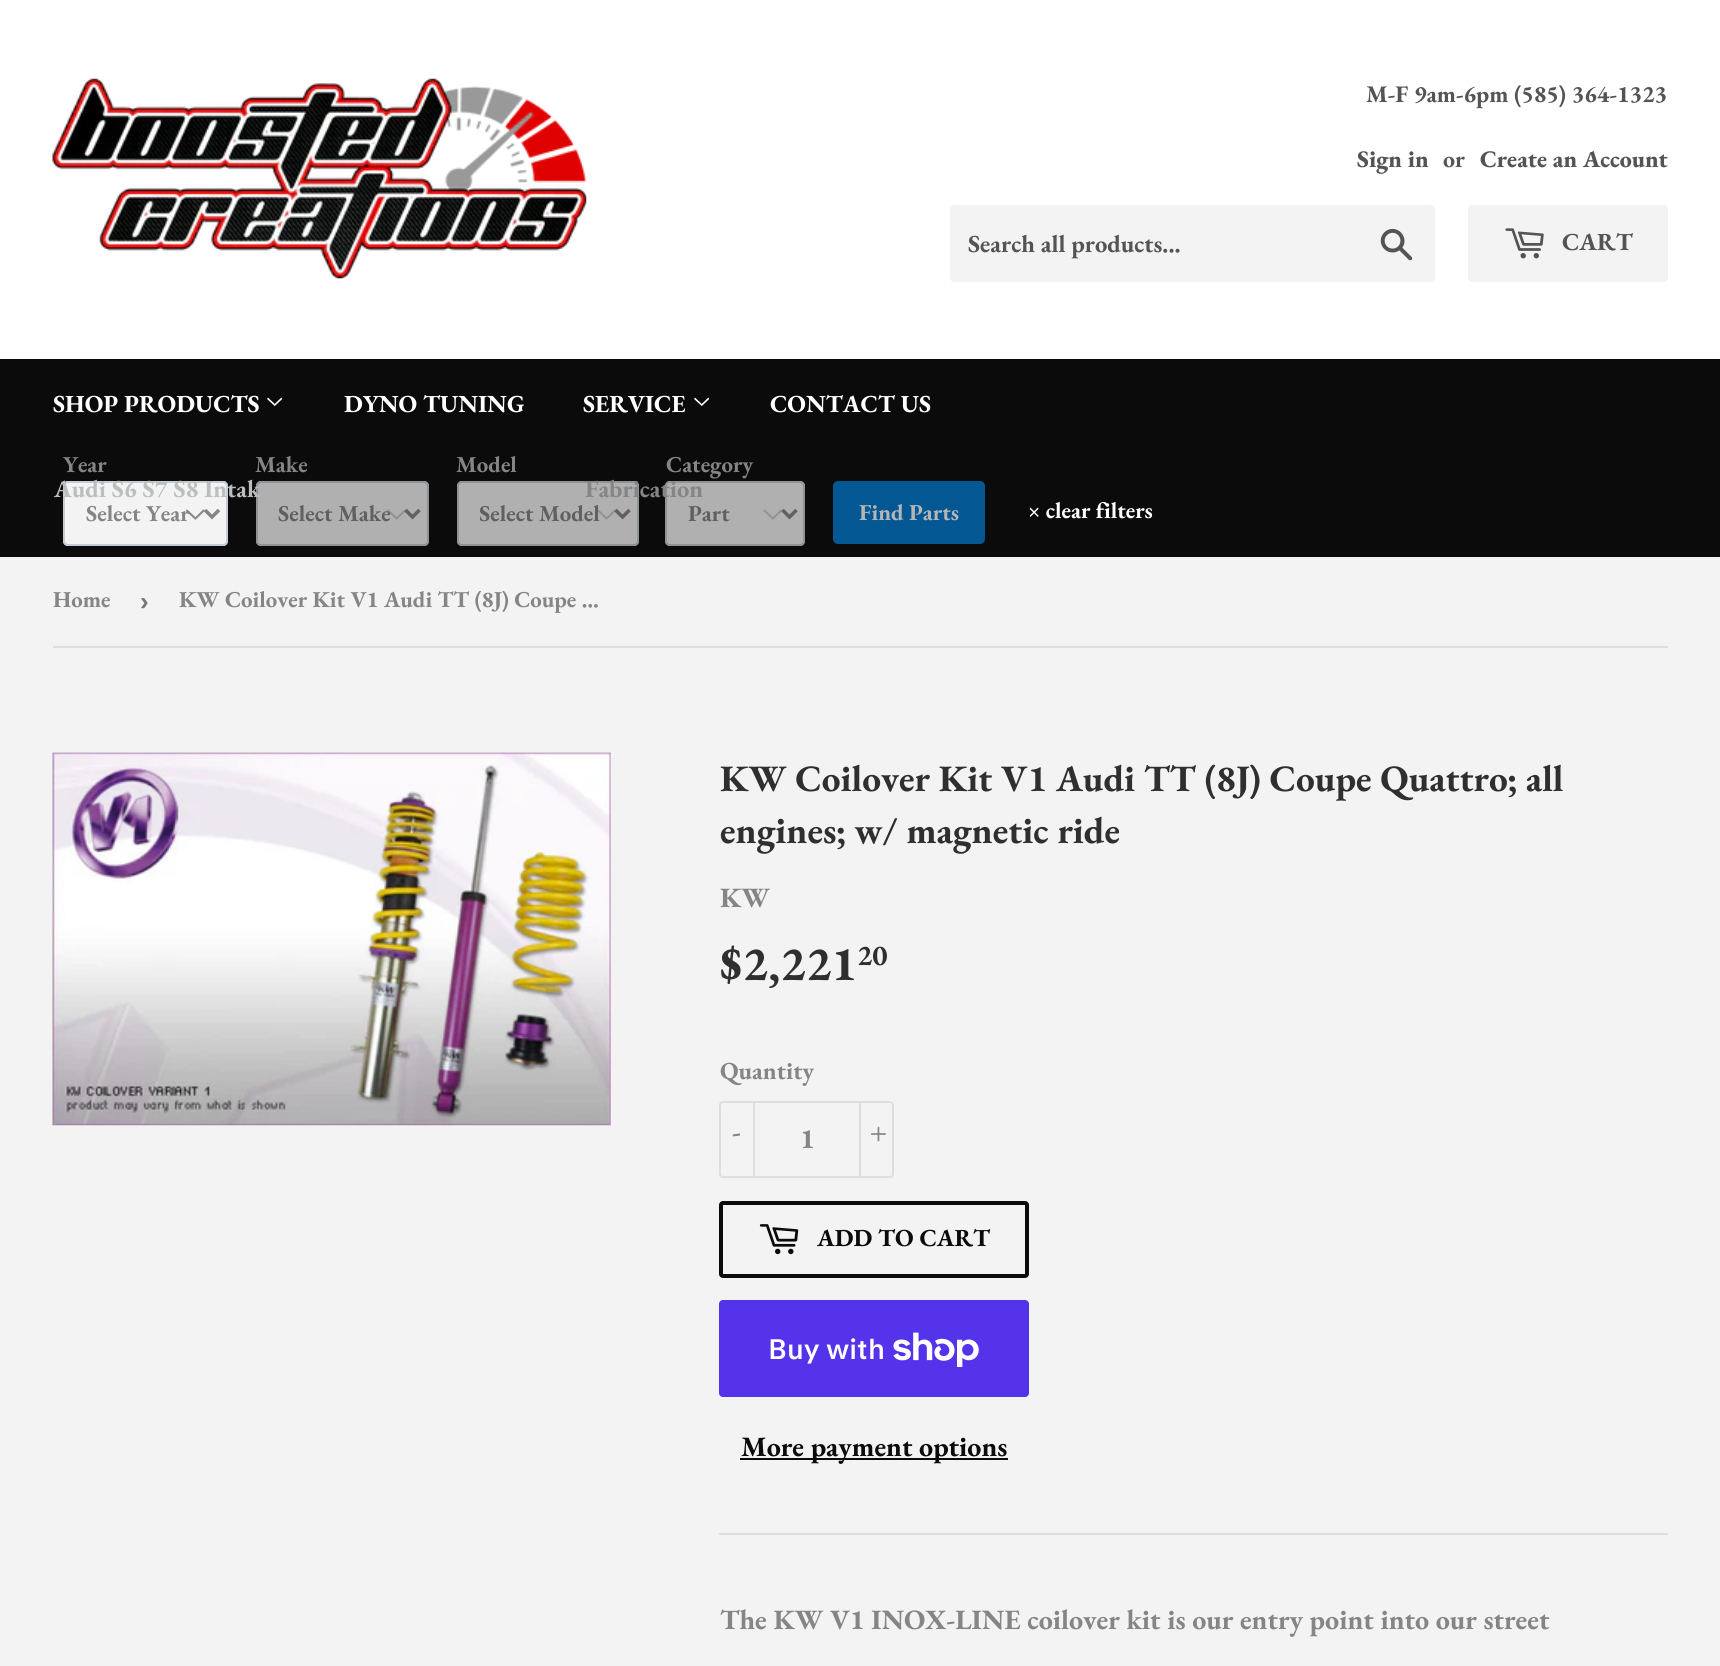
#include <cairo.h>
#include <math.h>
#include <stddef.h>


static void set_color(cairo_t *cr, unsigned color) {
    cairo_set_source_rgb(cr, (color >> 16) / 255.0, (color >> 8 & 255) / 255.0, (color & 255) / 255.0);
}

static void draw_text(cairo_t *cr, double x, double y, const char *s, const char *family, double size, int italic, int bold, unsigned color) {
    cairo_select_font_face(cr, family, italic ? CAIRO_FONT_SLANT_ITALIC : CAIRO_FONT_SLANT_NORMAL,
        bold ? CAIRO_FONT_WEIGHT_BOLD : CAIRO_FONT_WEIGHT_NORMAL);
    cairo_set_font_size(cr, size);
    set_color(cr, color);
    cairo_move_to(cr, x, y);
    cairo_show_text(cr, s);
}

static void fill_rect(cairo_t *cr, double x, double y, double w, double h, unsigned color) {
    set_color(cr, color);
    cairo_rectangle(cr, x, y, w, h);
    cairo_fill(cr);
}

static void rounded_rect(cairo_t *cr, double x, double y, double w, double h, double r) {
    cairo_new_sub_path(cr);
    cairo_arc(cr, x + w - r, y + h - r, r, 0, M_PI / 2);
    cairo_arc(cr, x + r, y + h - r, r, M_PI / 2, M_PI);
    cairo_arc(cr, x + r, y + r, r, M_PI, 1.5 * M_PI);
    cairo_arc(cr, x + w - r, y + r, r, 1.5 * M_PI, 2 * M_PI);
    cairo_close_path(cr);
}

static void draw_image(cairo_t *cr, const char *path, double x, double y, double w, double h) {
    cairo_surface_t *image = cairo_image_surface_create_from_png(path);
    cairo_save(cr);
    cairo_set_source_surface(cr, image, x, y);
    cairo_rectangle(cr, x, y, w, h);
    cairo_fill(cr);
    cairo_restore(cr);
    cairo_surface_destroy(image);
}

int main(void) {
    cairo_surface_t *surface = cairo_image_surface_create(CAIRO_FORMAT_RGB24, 1720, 1666);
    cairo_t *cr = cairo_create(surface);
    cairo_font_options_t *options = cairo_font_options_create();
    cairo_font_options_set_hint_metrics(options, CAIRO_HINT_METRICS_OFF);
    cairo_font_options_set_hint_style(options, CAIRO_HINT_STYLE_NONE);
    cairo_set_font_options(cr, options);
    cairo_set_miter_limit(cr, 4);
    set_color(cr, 0xF3F3F3);
    cairo_paint(cr);
    fill_rect(cr, 0, 0, 1720, 359, 0xFFFFFF);
    draw_image(cr, "assets/img1.png", 52, 78, 535, 201);
    draw_text(cr, 1366, 102, "M-F 9am-6pm (585) 364-1323", "EB Garamond", 23.75, 0, 1, 0x545454);
    draw_text(cr, 1357, 167, "Sign in", "EB Garamond ExtraBold", 23.75, 0, 0, 0x545454);
    draw_text(cr, 1443, 167, "or", "EB Garamond", 23.75, 0, 1, 0x545454);
    draw_text(cr, 1480, 167, "Create an Account", "EB Garamond ExtraBold", 23.75, 0, 0, 0x545454);
    set_color(cr, 0xF3F3F3);
    rounded_rect(cr, 950, 205, 485, 77, 4);
    cairo_fill(cr);
    draw_text(cr, 968, 252, "Search all products...", "EB Garamond", 24.5, 0, 1, 0x545454);
    draw_image(cr, "assets/img2.png", 1380, 228, 33, 33);
    set_color(cr, 0xF3F3F3);
    rounded_rect(cr, 1468, 205, 200, 77, 4);
    cairo_fill(cr);
    draw_image(cr, "assets/img3.png", 1505, 228, 39, 31);
    draw_text(cr, 1562, 250, "CART", "EB Garamond", 24.5, 0, 1, 0x545454);
    fill_rect(cr, 0, 359, 1720, 198, 0x0B0B0B);
    draw_text(cr, 53, 412, "SHOP PRODUCTS", "EB Garamond", 24.5, 0, 1, 0xFFFFFF);
    draw_image(cr, "assets/img4.png", 267, 397, 15, 9);
    set_color(cr, 0xF3F3F3);
    rounded_rect(cr, 63, 481, 165, 65, 5);
    cairo_fill(cr);
    draw_image(cr, "assets/img5.png", 186, 509, 19, 11);
    rounded_rect(cr, 64, 482, 163, 63, 4);
    set_color(cr, 0xC4CDD5);
    cairo_stroke(cr);
    set_color(cr, 0xB0B0B0);
    rounded_rect(cr, 256, 481, 173, 65, 5);
    cairo_fill(cr);
    draw_image(cr, "assets/img6.png", 387, 509, 19, 11);
    rounded_rect(cr, 257, 482, 171, 63, 4);
    set_color(cr, 0x8D9398);
    cairo_stroke(cr);
    draw_text(cr, 54, 497, "Audi S6 S7 S8 Intak", "EB Garamond", 24.5, 0, 1, 0xBCBDBD);
    draw_text(cr, 344, 412, "DYNO TUNING", "EB Garamond", 24.5, 0, 1, 0xFFFFFF);
    draw_text(cr, 583, 412, "SERVICE", "EB Garamond", 24.5, 0, 1, 0xFFFFFF);
    draw_image(cr, "assets/img4.png", 694, 397, 15, 9);
    set_color(cr, 0xB0B0B0);
    rounded_rect(cr, 457, 481, 182, 65, 5);
    cairo_fill(cr);
    draw_image(cr, "assets/img6.png", 597, 509, 19, 11);
    rounded_rect(cr, 458, 482, 180, 63, 4);
    set_color(cr, 0x8D9398);
    cairo_stroke(cr);
    set_color(cr, 0xB0B0B0);
    rounded_rect(cr, 665, 481, 140, 65, 5);
    cairo_fill(cr);
    draw_image(cr, "assets/img7.png", 763, 509, 19, 11);
    rounded_rect(cr, 666, 482, 138, 63, 4);
    set_color(cr, 0x8D9398);
    cairo_stroke(cr);
    draw_text(cr, 585, 497, "Fabrication", "EB Garamond", 24.5, 0, 1, 0x858585);
    draw_text(cr, 770, 412, "CONTACT US", "EB Garamond", 24.5, 0, 1, 0xFFFFFF);
    draw_text(cr, 63, 472, "Year", "EB Garamond", 22.75, 0, 1, 0x858585);
    cairo_new_path(cr);
    cairo_move_to(cr, 205, 510);
    cairo_line_to(cr, 212, 517);
    cairo_line_to(cr, 219, 510);
    cairo_set_line_width(cr, 3.5);
    cairo_stroke(cr);
    draw_text(cr, 86, 521, "Select Year", "EB Garamond", 22.75, 0, 1, 0x858585);
    draw_text(cr, 255, 472, "Make", "EB Garamond", 22.75, 0, 1, 0x858585);
    cairo_new_path(cr);
    cairo_move_to(cr, 405.5, 510);
    cairo_line_to(cr, 412.5, 517);
    cairo_line_to(cr, 419.5, 510);
    set_color(cr, 0x606060);
    cairo_stroke(cr);
    draw_text(cr, 278, 521, "Select Make", "EB Garamond", 22.75, 0, 1, 0x606060);
    draw_text(cr, 456, 472, "Model", "EB Garamond", 22.75, 0, 1, 0x858585);
    cairo_new_path(cr);
    cairo_move_to(cr, 615.5, 510);
    cairo_line_to(cr, 622.5, 517);
    cairo_line_to(cr, 629.5, 510);
    set_color(cr, 0x606060);
    cairo_stroke(cr);
    cairo_save(cr);
    cairo_rectangle(cr, 480, 497, 122, 33);
    cairo_clip(cr);
    draw_text(cr, 479, 521, "Select Model", "EB Garamond", 22.75, 0, 1, 0x606060);
    cairo_restore(cr);
    draw_text(cr, 666, 472, "Category", "EB Garamond", 22.75, 0, 1, 0x858585);
    cairo_new_path(cr);
    cairo_move_to(cr, 782.5, 510);
    cairo_line_to(cr, 789.5, 517);
    cairo_line_to(cr, 796.5, 510);
    set_color(cr, 0x606060);
    cairo_stroke(cr);
    draw_text(cr, 688, 521, "Part", "EB Garamond", 22.75, 0, 1, 0x606060);
    set_color(cr, 0x035792);
    rounded_rect(cr, 833, 481, 152, 63, 5);
    cairo_fill(cr);
    draw_text(cr, 859, 520, "Find Parts", "EB Garamond", 22.75, 0, 1, 0xB6B6B6);
    draw_text(cr, 1028, 518, "× clear filters", "EB Garamond", 22.75, 0, 1, 0xFFFFFF);
    fill_rect(cr, 53, 646, 1615, 2, 0xDEDEDE);
    draw_text(cr, 53, 607, "Home", "EB Garamond", 22.75, 0, 1, 0x858585);
    draw_text(cr, 140, 610, "›", "Liberation Sans", 26, 0, 1, 0x767676);
    draw_text(cr, 179, 607, "KW Coilover Kit V1 Audi TT (8J) Coupe …", "EB Garamond", 22.75, 0, 1, 0x858585);
    draw_image(cr, "assets/img8.png", 52, 752, 559, 374);
    draw_text(cr, 720, 791, "KW Coilover Kit V1 Audi TT (8J) Coupe Quattro; all", "EB Garamond", 37.3, 0, 1, 0x2F2F2F);
    draw_text(cr, 720, 843, "engines; w/ magnetic ride", "EB Garamond", 37.3, 0, 1, 0x2F2F2F);
    draw_text(cr, 720, 907, "KW", "EB Garamond", 28, 0, 1, 0x858585);
    draw_text(cr, 720, 980, "$2,221", "EB Garamond", 48.5, 0, 1, 0x2F2F2F);
    draw_text(cr, 857, 965, "20", "EB Garamond", 29, 0, 1, 0x2F2F2F);
    draw_text(cr, 720, 1079, "Quantity", "EB Garamond", 24.5, 0, 1, 0x858585);
    rounded_rect(cr, 720, 1102, 173, 75, 3);
    set_color(cr, 0xDEDEDE);
    cairo_set_line_width(cr, 2);
    cairo_stroke(cr);
    fill_rect(cr, 753, 1101, 2, 77, 0xDEDEDE);
    draw_text(cr, 732, 1141, "-", "EB Garamond", 28, 0, 1, 0x858585);
    draw_text(cr, 800, 1148, "1", "EB Garamond", 28, 0, 1, 0x858585);
    fill_rect(cr, 859, 1101, 2, 77, 0xDEDEDE);
    draw_text(cr, 870, 1141, "+", "EB Garamond", 28, 0, 1, 0x858585);
    rounded_rect(cr, 721, 1203, 306, 73, 2);
    set_color(cr, 0x0B0B0B);
    cairo_set_line_width(cr, 4);
    cairo_stroke(cr);
    draw_image(cr, "assets/img9.png", 759, 1224, 40, 31);
    draw_text(cr, 817, 1246, "ADD TO CART", "EB Garamond", 24.5, 0, 1, 0x0B0B0B);
    set_color(cr, 0x5433EB);
    rounded_rect(cr, 719, 1300, 310, 97, 4);
    cairo_fill(cr);
    draw_text(cr, 768, 1359, "Buy with", "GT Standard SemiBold", 28, 0, 0, 0xFFFFFF);
    draw_image(cr, "assets/img10.png", 893, 1332, 86, 35);
    fill_rect(cr, 740, 1458, 268, 2, 0x0B0B0B);
    draw_text(cr, 741, 1456, "More payment options", "EB Garamond", 28, 0, 1, 0x0B0B0B);
    fill_rect(cr, 719, 1533, 949, 2, 0xDEDEDE);
    draw_text(cr, 720, 1629, "The KW V1 INOX-LINE coilover kit is our entry point into our street", "EB Garamond", 28, 0, 1, 0x858585);
    cairo_surface_write_to_png(surface, "output.png");
    cairo_font_options_destroy(options);
    cairo_destroy(cr);
    cairo_surface_destroy(surface);
    return 0;
}
